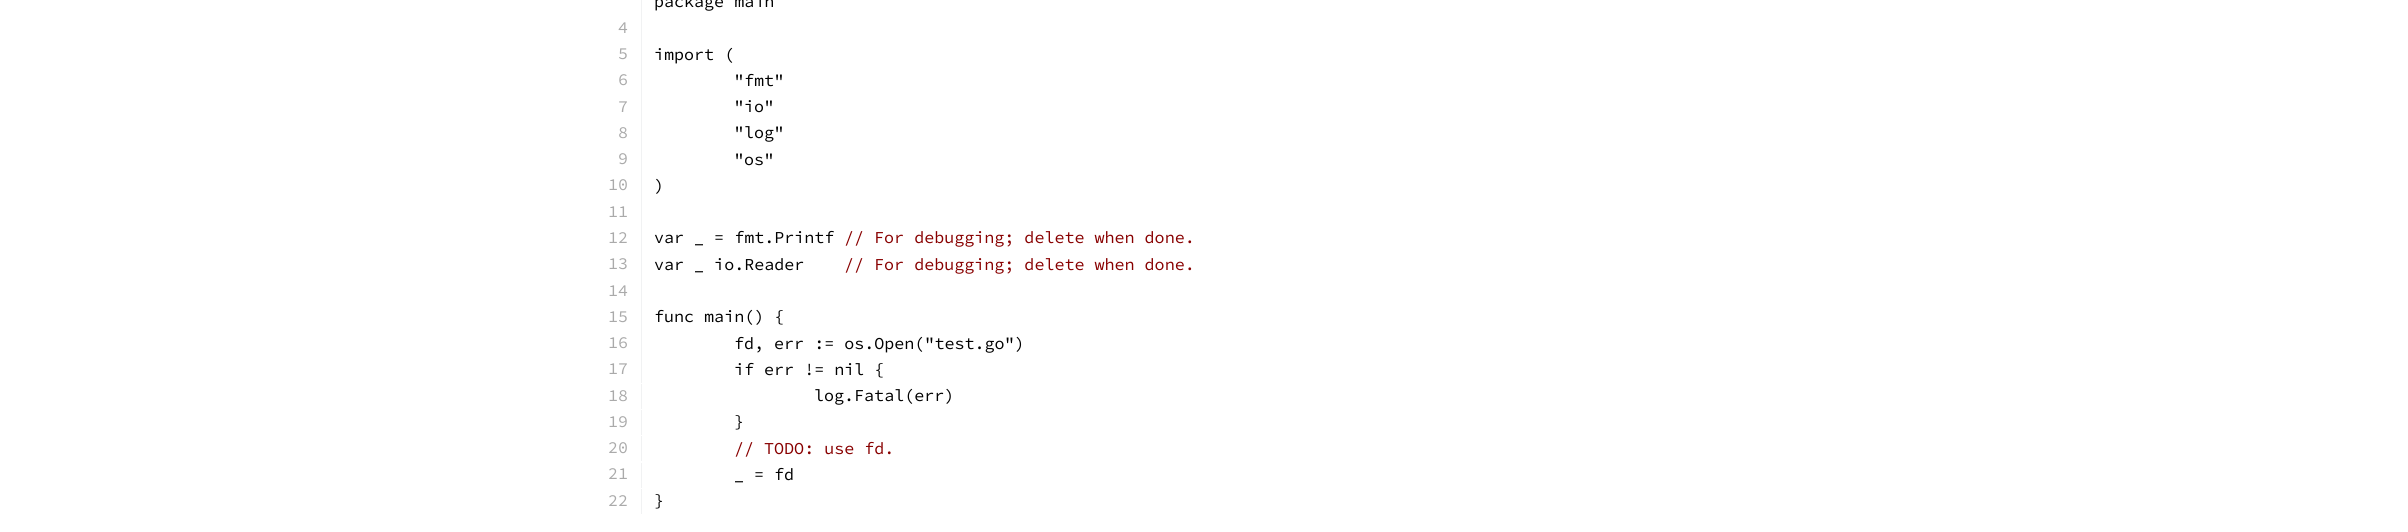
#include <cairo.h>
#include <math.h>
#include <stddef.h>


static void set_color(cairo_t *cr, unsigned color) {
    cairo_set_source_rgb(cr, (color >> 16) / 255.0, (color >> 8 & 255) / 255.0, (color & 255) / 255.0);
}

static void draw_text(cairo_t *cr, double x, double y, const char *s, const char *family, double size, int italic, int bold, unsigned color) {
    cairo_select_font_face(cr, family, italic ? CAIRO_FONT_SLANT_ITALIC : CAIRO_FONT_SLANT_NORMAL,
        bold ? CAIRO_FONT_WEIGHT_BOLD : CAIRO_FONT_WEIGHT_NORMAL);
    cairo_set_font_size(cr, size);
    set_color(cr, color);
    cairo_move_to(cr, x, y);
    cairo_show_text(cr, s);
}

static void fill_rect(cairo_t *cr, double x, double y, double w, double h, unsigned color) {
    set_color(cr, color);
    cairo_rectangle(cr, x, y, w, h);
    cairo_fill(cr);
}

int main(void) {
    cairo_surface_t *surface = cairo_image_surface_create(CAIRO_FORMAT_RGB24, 2408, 532);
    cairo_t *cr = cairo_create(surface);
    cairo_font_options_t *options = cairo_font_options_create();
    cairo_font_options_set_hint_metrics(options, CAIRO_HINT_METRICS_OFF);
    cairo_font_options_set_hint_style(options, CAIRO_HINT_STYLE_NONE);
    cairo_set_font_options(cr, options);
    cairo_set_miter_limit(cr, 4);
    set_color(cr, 0xFFFFFF);
    cairo_paint(cr);
    fill_rect(cr, 641, 0, 1, 383, 0xF1F2F3);
    draw_text(cr, 654, 7, "package main", "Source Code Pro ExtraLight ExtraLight", 16.7, 0, 0, 0x000000);
    draw_text(cr, 618, 33, "4", "Source Code Pro ExtraLight ExtraLight", 16.7, 0, 0, 0xAAAAAA);
    draw_text(cr, 618, 59, "5", "Source Code Pro ExtraLight ExtraLight", 16.7, 0, 0, 0xAAAAAA);
    draw_text(cr, 654, 60, "import (", "Source Code Pro ExtraLight ExtraLight", 16.7, 0, 0, 0x000000);
    draw_text(cr, 618, 85, "6", "Source Code Pro ExtraLight ExtraLight", 16.7, 0, 0, 0xAAAAAA);
    draw_text(cr, 734, 86, "\"fmt\"", "Source Code Pro ExtraLight ExtraLight", 16.7, 0, 0, 0x000000);
    draw_text(cr, 618, 112, "7", "Source Code Pro ExtraLight ExtraLight", 16.7, 0, 0, 0xAAAAAA);
    draw_text(cr, 734, 112, "\"io\"", "Source Code Pro ExtraLight ExtraLight", 16.7, 0, 0, 0x000000);
    draw_text(cr, 618, 138, "8", "Source Code Pro ExtraLight ExtraLight", 16.7, 0, 0, 0xAAAAAA);
    draw_text(cr, 734, 138, "\"log\"", "Source Code Pro ExtraLight ExtraLight", 16.7, 0, 0, 0x000000);
    draw_text(cr, 618, 164, "9", "Source Code Pro ExtraLight ExtraLight", 16.7, 0, 0, 0xAAAAAA);
    draw_text(cr, 734, 165, "\"os\"", "Source Code Pro ExtraLight ExtraLight", 16.7, 0, 0, 0x000000);
    draw_text(cr, 608, 190, "10", "Source Code Pro ExtraLight ExtraLight", 16.7, 0, 0, 0xAAAAAA);
    draw_text(cr, 654, 191, ")", "Source Code Pro ExtraLight ExtraLight", 16.7, 0, 0, 0x000000);
    draw_text(cr, 608, 217, "11", "Source Code Pro ExtraLight ExtraLight", 16.7, 0, 0, 0xAAAAAA);
    draw_text(cr, 608, 243, "12", "Source Code Pro ExtraLight ExtraLight", 16.7, 0, 0, 0xAAAAAA);
    draw_text(cr, 654, 243, "var _ = fmt.Printf", "Source Code Pro ExtraLight ExtraLight", 16.7, 0, 0, 0x000000);
    draw_text(cr, 844, 243, "// For debugging; delete when done.", "Source Code Pro ExtraLight ExtraLight", 16.7, 0, 0, 0x880000);
    draw_text(cr, 608, 269, "13", "Source Code Pro ExtraLight ExtraLight", 16.7, 0, 0, 0xAAAAAA);
    draw_text(cr, 654, 270, "var _ io.Reader", "Source Code Pro ExtraLight ExtraLight", 16.7, 0, 0, 0x000000);
    draw_text(cr, 844, 270, "// For debugging; delete when done.", "Source Code Pro ExtraLight ExtraLight", 16.7, 0, 0, 0x880000);
    draw_text(cr, 608, 296, "14", "Source Code Pro ExtraLight ExtraLight", 16.7, 0, 0, 0xAAAAAA);
    draw_text(cr, 608, 322, "15", "Source Code Pro ExtraLight ExtraLight", 16.7, 0, 0, 0xAAAAAA);
    draw_text(cr, 654, 322, "func main() {", "Source Code Pro ExtraLight ExtraLight", 16.7, 0, 0, 0x000000);
    draw_text(cr, 608, 348, "16", "Source Code Pro ExtraLight ExtraLight", 16.7, 0, 0, 0xAAAAAA);
    draw_text(cr, 734, 349, "fd, err := os.Open(\"test.go\")", "Source Code Pro ExtraLight ExtraLight", 16.7, 0, 0, 0x000000);
    draw_text(cr, 608, 374, "17", "Source Code Pro ExtraLight ExtraLight", 16.7, 0, 0, 0xAAAAAA);
    draw_text(cr, 734, 375, "if err != nil {", "Source Code Pro ExtraLight ExtraLight", 16.7, 0, 0, 0x000000);
    fill_rect(cr, 641, 384, 1, 25, 0xF1F2F3);
    draw_text(cr, 608, 401, "18", "Source Code Pro ExtraLight ExtraLight", 16.7, 0, 0, 0xAAAAAA);
    draw_text(cr, 814, 401, "log.Fatal(err)", "Source Code Pro ExtraLight ExtraLight", 16.7, 0, 0, 0x000000);
    fill_rect(cr, 641, 410, 1, 25, 0xF1F2F3);
    draw_text(cr, 608, 427, "19", "Source Code Pro ExtraLight ExtraLight", 16.7, 0, 0, 0xAAAAAA);
    draw_text(cr, 734, 427, "}", "Source Code Pro ExtraLight ExtraLight", 16.7, 0, 0, 0x000000);
    fill_rect(cr, 641, 436, 1, 25, 0xF1F2F3);
    draw_text(cr, 608, 453, "20", "Source Code Pro ExtraLight ExtraLight", 16.7, 0, 0, 0xAAAAAA);
    draw_text(cr, 734, 454, "// TODO: use fd.", "Source Code Pro ExtraLight ExtraLight", 16.7, 0, 0, 0x880000);
    fill_rect(cr, 641, 463, 1, 25, 0xF1F2F3);
    draw_text(cr, 608, 479, "21", "Source Code Pro ExtraLight ExtraLight", 16.7, 0, 0, 0xAAAAAA);
    draw_text(cr, 734, 480, "_ = fd", "Source Code Pro ExtraLight ExtraLight", 16.7, 0, 0, 0x000000);
    fill_rect(cr, 641, 489, 1, 25, 0xF1F2F3);
    draw_text(cr, 608, 506, "22", "Source Code Pro ExtraLight ExtraLight", 16.7, 0, 0, 0xAAAAAA);
    draw_text(cr, 654, 506, "}", "Source Code Pro ExtraLight ExtraLight", 16.7, 0, 0, 0x000000);
    cairo_surface_write_to_png(surface, "output.png");
    cairo_font_options_destroy(options);
    cairo_destroy(cr);
    cairo_surface_destroy(surface);
    return 0;
}
